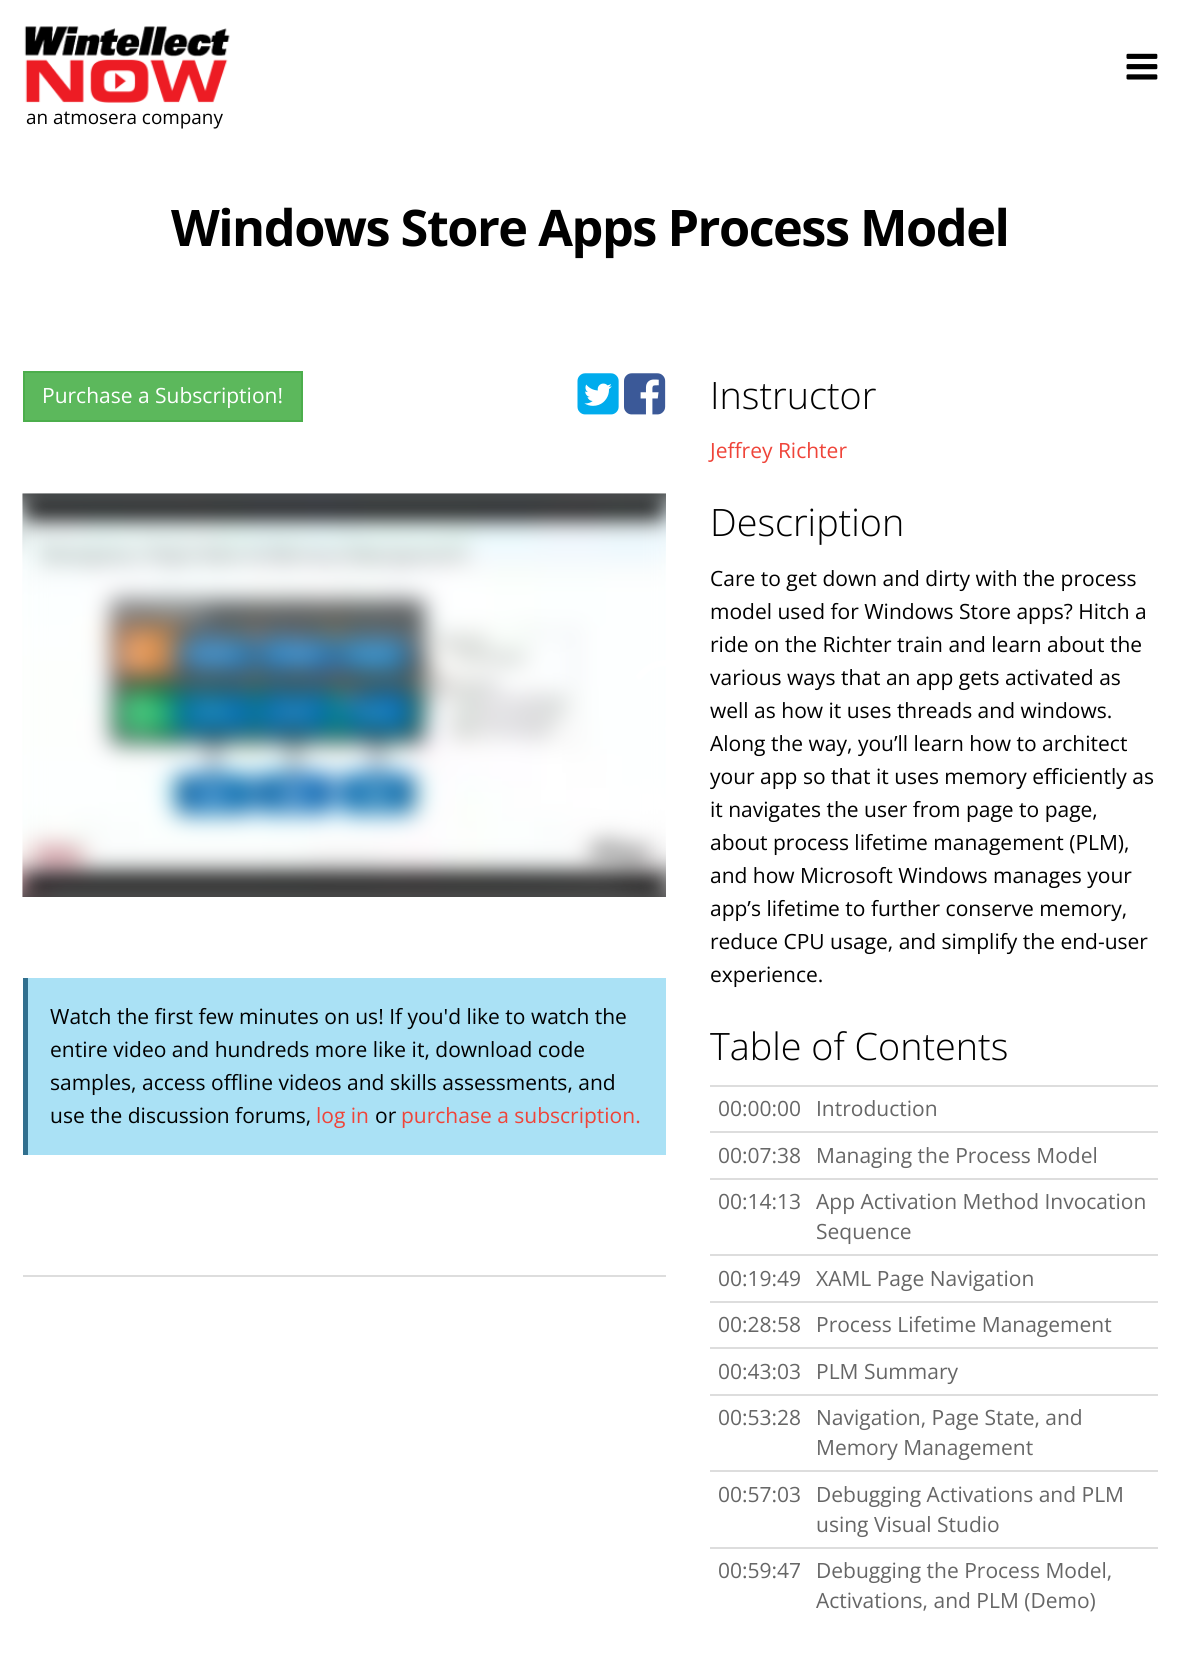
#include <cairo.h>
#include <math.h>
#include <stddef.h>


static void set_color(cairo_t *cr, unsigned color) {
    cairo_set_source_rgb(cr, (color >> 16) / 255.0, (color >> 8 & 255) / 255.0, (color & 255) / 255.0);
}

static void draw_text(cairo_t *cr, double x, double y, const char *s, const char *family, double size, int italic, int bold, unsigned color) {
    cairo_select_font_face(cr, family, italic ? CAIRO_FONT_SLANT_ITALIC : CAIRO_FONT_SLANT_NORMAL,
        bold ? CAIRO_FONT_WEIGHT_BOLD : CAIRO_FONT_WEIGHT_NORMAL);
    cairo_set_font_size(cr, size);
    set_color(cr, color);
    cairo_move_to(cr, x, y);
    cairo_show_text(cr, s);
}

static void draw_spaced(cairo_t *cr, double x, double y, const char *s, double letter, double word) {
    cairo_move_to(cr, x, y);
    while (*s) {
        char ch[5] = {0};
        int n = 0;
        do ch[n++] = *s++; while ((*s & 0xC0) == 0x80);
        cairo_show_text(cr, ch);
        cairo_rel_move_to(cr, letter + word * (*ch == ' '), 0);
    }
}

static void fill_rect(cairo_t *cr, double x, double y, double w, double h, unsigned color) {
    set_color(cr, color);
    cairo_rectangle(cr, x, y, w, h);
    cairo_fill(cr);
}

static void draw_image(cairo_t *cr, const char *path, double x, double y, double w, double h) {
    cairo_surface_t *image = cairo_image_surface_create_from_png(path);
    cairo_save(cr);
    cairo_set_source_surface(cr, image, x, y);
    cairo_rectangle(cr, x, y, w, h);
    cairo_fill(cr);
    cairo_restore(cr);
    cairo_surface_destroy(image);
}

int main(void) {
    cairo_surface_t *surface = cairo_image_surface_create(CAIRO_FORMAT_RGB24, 1178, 1676);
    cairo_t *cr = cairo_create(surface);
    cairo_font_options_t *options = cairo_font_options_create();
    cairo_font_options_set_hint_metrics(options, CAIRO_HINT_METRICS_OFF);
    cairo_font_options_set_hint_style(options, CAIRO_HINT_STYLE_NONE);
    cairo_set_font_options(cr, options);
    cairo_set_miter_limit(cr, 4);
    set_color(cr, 0xFFFFFF);
    cairo_paint(cr);
    draw_image(cr, "assets/img1.png", 1126, 53, 32, 27);
    draw_image(cr, "assets/img2.png", 24, 26, 206, 77);
    draw_text(cr, 26, 124, "an atmosera company", "Open Sans", 18.9, 0, 0, 0x000000);
    cairo_select_font_face(cr, "Open Sans", CAIRO_FONT_SLANT_NORMAL, CAIRO_FONT_WEIGHT_BOLD);
    cairo_set_font_size(cr, 50.4);
    draw_spaced(cr, 171, 246, "Windows Store Apps Process Model", -1.5, 0);
    set_color(cr, 0x5CB85C);
    cairo_rectangle(cr, 24, 372, 278, 49);
    cairo_fill_preserve(cr);
    set_color(cr, 0x4CAE4C);
    cairo_stroke(cr);
    draw_text(cr, 42, 403, "Purchase a Subscription!", "Open Sans", 21, 0, 0, 0xFFFFFF);
    draw_image(cr, "assets/img3.png", 577, 373, 42, 42);
    draw_image(cr, "assets/img4.png", 624, 373, 42, 42);
    draw_image(cr, "assets/img5.png", 22, 493, 644, 404);
    fill_rect(cr, 28, 978, 638, 177, 0xAAE1F5);
    fill_rect(cr, 23, 978, 5, 177, 0x31708F);
    draw_text(cr, 50, 1024, "Watch the first few minutes on us! If you'd like to watch the", "Open Sans", 21, 0, 0, 0x000000);
    draw_text(cr, 50, 1057, "entire video and hundreds more like it, download code", "Open Sans", 21, 0, 0, 0x000000);
    draw_text(cr, 50, 1090, "samples, access offline videos and skills assessments, and", "Open Sans", 21, 0, 0, 0x000000);
    draw_text(cr, 50, 1123, "use the discussion forums,", "Open Sans", 21, 0, 0, 0x000000);
    draw_text(cr, 316, 1123, "log in", "Open Sans", 21, 0, 0, 0xEF4439);
    draw_text(cr, 375, 1123, "or", "Open Sans", 21, 0, 0, 0x000000);
    draw_text(cr, 401, 1123, "purchase a subscription.", "Open Sans", 21, 0, 0, 0xEF4439);
    fill_rect(cr, 23, 1275, 643, 2, 0xDDDDDD);
    draw_text(cr, 710, 409, "Instructor", "Open Sans Light", 37.75, 0, 0, 0x000000);
    draw_text(cr, 710, 458, "Jeffrey Richter", "Open Sans", 21, 0, 0, 0xEF4439);
    draw_text(cr, 710, 536, "Description", "Open Sans Light", 37.75, 0, 0, 0x000000);
    draw_text(cr, 710, 586, "Care to get down and dirty with the process", "Open Sans", 21, 0, 0, 0x000000);
    draw_text(cr, 710, 619, "model used for Windows Store apps? Hitch a", "Open Sans", 21, 0, 0, 0x000000);
    draw_text(cr, 710, 652, "ride on the Richter train and learn about the", "Open Sans", 21, 0, 0, 0x000000);
    draw_text(cr, 710, 685, "various ways that an app gets activated as", "Open Sans", 21, 0, 0, 0x000000);
    draw_text(cr, 710, 718, "well as how it uses threads and windows.", "Open Sans", 21, 0, 0, 0x000000);
    draw_text(cr, 710, 751, "Along the way, you’ll learn how to architect", "Open Sans", 21, 0, 0, 0x000000);
    draw_text(cr, 710, 784, "your app so that it uses memory efficiently as", "Open Sans", 21, 0, 0, 0x000000);
    draw_text(cr, 710, 817, "it navigates the user from page to page,", "Open Sans", 21, 0, 0, 0x000000);
    draw_text(cr, 710, 850, "about process lifetime management (PLM),", "Open Sans", 21, 0, 0, 0x000000);
    draw_text(cr, 710, 883, "and how Microsoft Windows manages your", "Open Sans", 21, 0, 0, 0x000000);
    draw_text(cr, 710, 916, "app’s lifetime to further conserve memory,", "Open Sans", 21, 0, 0, 0x000000);
    draw_text(cr, 710, 949, "reduce CPU usage, and simplify the end-user", "Open Sans", 21, 0, 0, 0x000000);
    draw_text(cr, 710, 982, "experience.", "Open Sans", 21, 0, 0, 0x000000);
    draw_text(cr, 710, 1060, "Table of Contents", "Open Sans Light", 37.75, 0, 0, 0x000000);
    draw_text(cr, 718, 1116, "00:00:00", "Open Sans", 21, 0, 0, 0x666666);
    fill_rect(cr, 710, 1085, 448, 2, 0xDDDDDD);
    draw_text(cr, 816, 1116, "Introduction", "Open Sans", 21, 0, 0, 0x666666);
    draw_text(cr, 718, 1163, "00:07:38", "Open Sans", 21, 0, 0, 0x666666);
    fill_rect(cr, 710, 1131, 448, 2, 0xDDDDDD);
    draw_text(cr, 816, 1163, "Managing the Process Model", "Open Sans", 21, 0, 0, 0x666666);
    draw_text(cr, 718, 1209, "00:14:13", "Open Sans", 21, 0, 0, 0x666666);
    fill_rect(cr, 710, 1178, 448, 2, 0xDDDDDD);
    draw_text(cr, 816, 1209, "App Activation Method Invocation", "Open Sans", 21, 0, 0, 0x666666);
    draw_text(cr, 816, 1239, "Sequence", "Open Sans", 21, 0, 0, 0x666666);
    draw_text(cr, 718, 1286, "00:19:49", "Open Sans", 21, 0, 0, 0x666666);
    fill_rect(cr, 710, 1254, 448, 2, 0xDDDDDD);
    draw_text(cr, 816, 1286, "XAML Page Navigation", "Open Sans", 21, 0, 0, 0x666666);
    draw_text(cr, 718, 1332, "00:28:58", "Open Sans", 21, 0, 0, 0x666666);
    fill_rect(cr, 710, 1301, 448, 2, 0xDDDDDD);
    draw_text(cr, 816, 1332, "Process Lifetime Management", "Open Sans", 21, 0, 0, 0x666666);
    draw_text(cr, 718, 1379, "00:43:03", "Open Sans", 21, 0, 0, 0x666666);
    fill_rect(cr, 710, 1347, 448, 2, 0xDDDDDD);
    draw_text(cr, 816, 1379, "PLM Summary", "Open Sans", 21, 0, 0, 0x666666);
    draw_text(cr, 718, 1425, "00:53:28", "Open Sans", 21, 0, 0, 0x666666);
    fill_rect(cr, 710, 1394, 448, 2, 0xDDDDDD);
    draw_text(cr, 816, 1425, "Navigation, Page State, and", "Open Sans", 21, 0, 0, 0x666666);
    draw_text(cr, 816, 1455, "Memory Management", "Open Sans", 21, 0, 0, 0x666666);
    draw_text(cr, 718, 1502, "00:57:03", "Open Sans", 21, 0, 0, 0x666666);
    fill_rect(cr, 710, 1470, 448, 2, 0xDDDDDD);
    draw_text(cr, 816, 1502, "Debugging Activations and PLM", "Open Sans", 21, 0, 0, 0x666666);
    draw_text(cr, 816, 1532, "using Visual Studio", "Open Sans", 21, 0, 0, 0x666666);
    draw_text(cr, 718, 1578, "00:59:47", "Open Sans", 21, 0, 0, 0x666666);
    fill_rect(cr, 710, 1547, 448, 2, 0xDDDDDD);
    draw_text(cr, 816, 1578, "Debugging the Process Model,", "Open Sans", 21, 0, 0, 0x666666);
    draw_text(cr, 816, 1608, "Activations, and PLM (Demo)", "Open Sans", 21, 0, 0, 0x666666);
    cairo_surface_write_to_png(surface, "output.png");
    cairo_font_options_destroy(options);
    cairo_destroy(cr);
    cairo_surface_destroy(surface);
    return 0;
}
